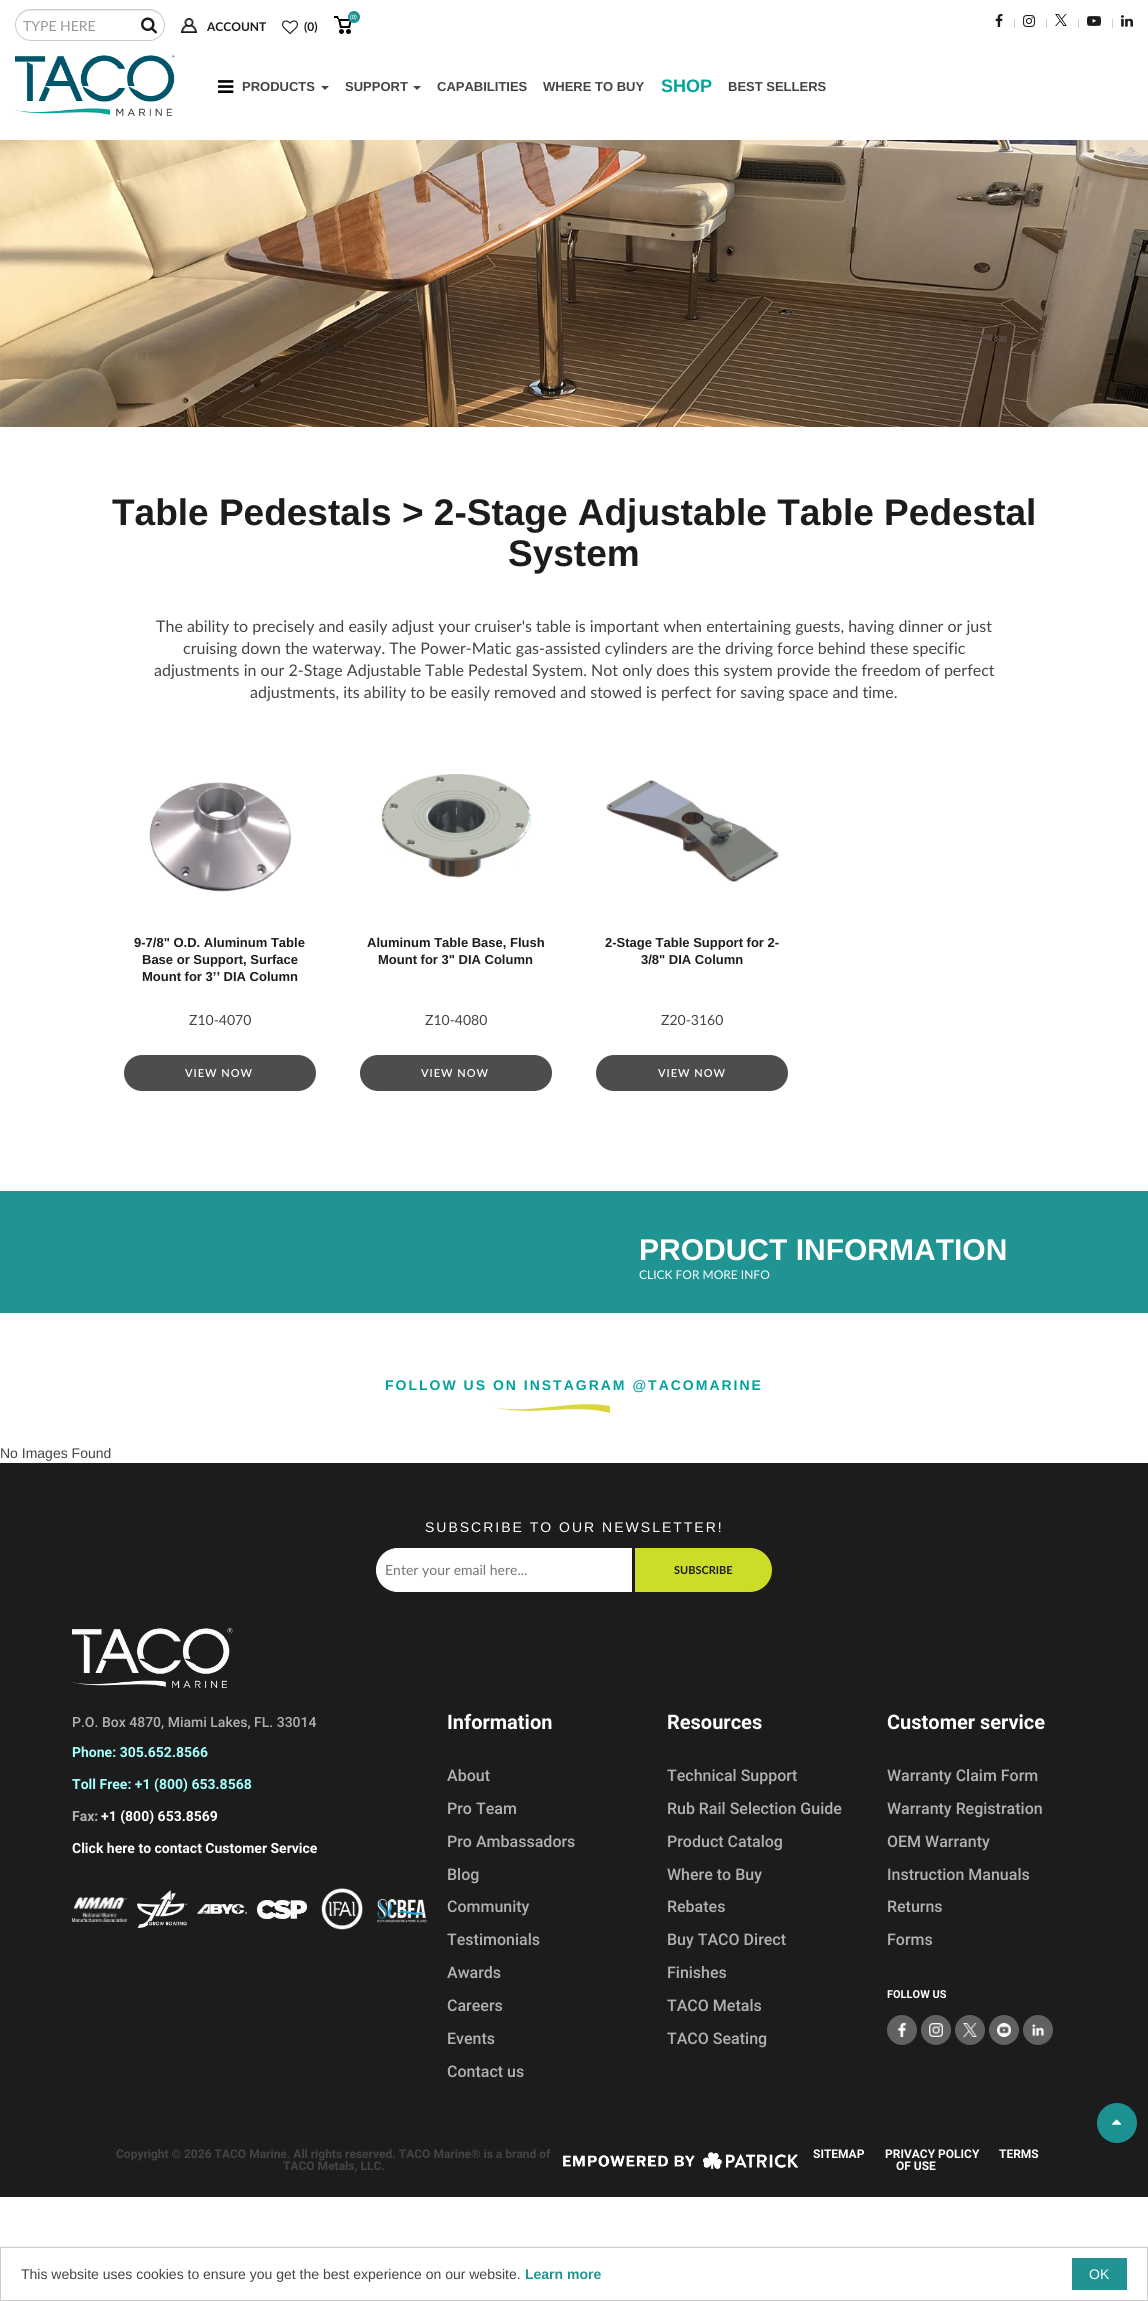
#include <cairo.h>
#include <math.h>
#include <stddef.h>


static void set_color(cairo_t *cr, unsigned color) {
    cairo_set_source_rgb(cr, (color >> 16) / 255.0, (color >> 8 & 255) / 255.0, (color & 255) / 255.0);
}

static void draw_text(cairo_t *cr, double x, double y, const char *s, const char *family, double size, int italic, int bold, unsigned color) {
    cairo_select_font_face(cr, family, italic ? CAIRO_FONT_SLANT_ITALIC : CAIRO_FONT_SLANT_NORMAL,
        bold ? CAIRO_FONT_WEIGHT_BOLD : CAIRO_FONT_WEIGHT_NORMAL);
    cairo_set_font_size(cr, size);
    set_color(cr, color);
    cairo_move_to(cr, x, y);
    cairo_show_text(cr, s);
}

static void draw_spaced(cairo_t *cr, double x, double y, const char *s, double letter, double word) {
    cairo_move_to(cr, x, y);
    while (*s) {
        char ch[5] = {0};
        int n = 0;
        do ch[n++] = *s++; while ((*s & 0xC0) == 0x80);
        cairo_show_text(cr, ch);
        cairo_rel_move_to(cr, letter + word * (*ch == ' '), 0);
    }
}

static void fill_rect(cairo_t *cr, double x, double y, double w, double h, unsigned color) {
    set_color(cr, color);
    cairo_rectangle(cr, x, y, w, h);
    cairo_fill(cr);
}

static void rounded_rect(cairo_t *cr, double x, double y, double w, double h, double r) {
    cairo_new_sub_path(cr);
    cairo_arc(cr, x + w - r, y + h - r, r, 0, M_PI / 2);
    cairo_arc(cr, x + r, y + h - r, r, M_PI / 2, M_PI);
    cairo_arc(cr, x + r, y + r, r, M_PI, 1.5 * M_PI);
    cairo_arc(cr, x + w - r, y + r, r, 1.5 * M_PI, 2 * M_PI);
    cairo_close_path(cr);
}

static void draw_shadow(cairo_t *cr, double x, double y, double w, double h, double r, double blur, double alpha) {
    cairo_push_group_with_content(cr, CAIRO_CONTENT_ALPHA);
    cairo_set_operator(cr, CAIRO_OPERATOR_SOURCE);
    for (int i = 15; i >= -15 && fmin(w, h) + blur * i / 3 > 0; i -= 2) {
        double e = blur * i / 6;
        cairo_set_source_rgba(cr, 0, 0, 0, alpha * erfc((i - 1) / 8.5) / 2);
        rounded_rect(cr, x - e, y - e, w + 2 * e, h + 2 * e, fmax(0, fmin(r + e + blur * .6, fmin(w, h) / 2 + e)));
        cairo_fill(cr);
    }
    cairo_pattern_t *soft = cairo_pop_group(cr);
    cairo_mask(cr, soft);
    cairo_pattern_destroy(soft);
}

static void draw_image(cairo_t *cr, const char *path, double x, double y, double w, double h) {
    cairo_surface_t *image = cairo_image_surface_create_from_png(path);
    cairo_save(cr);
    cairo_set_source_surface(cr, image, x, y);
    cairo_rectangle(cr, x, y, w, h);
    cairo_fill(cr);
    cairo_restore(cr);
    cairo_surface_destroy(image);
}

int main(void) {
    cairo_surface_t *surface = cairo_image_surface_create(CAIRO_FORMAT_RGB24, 1148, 2301);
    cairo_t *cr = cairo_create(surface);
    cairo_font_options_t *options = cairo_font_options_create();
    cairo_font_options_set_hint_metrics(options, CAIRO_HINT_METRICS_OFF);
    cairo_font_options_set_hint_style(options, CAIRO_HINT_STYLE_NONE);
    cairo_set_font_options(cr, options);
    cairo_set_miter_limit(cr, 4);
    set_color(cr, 0xFFFFFF);
    cairo_paint(cr);
    set_color(cr, 0xECECEC);
    cairo_new_path(cr);
    cairo_move_to(cr, 31, 11);
    cairo_line_to(cr, 149, 11);
    cairo_curve_to(cr, 157, 11, 164, 18, 164, 26);
    cairo_line_to(cr, 164, 25);
    cairo_curve_to(cr, 164, 17, 157, 10, 149, 10);
    cairo_line_to(cr, 31, 10);
    cairo_curve_to(cr, 23, 10, 16, 17, 16, 25);
    cairo_line_to(cr, 16, 26);
    cairo_curve_to(cr, 16, 18, 23, 11, 31, 11);
    cairo_close_path(cr);
    cairo_fill(cr);
    rounded_rect(cr, 15.5, 9.5, 149, 31, 15.5);
    set_color(cr, 0xCCCCCC);
    cairo_set_line_width(cr, 1);
    cairo_stroke(cr);
    draw_text(cr, 23, 31, "TYPE HERE", "Lato", 14, 0, 0, 0x999999);
    draw_image(cr, "assets/img1.png", 141, 17, 16, 17);
    draw_image(cr, "assets/img2.png", 334, 16, 18, 18);
    set_color(cr, 0x209393);
    cairo_arc(cr, 354, 17, 6, 0, 2 * M_PI);
    cairo_fill(cr);
    draw_text(cr, 350, 19, "(0)", "Lato SemiBold", 6, 0, 0, 0xFFFFFF);
    draw_image(cr, "assets/img3.png", 181, 18, 16, 15);
    draw_text(cr, 207, 31, "ACCOUNT", "Lato", 12, 0, 1, 0x1C1C1C);
    draw_image(cr, "assets/img4.png", 282, 20, 16, 15);
    draw_text(cr, 304, 31, "(0)", "Lato", 12, 0, 1, 0x1C1C1C);
    draw_image(cr, "assets/img5.png", 995, 14, 8, 13);
    fill_rect(cr, 1014, 19, 1, 9, 0xCCCCCC);
    draw_image(cr, "assets/img6.png", 1023, 15, 12, 12);
    fill_rect(cr, 1046, 19, 1, 9, 0xCCCCCC);
    draw_image(cr, "assets/img7.png", 1055, 14, 12, 12);
    fill_rect(cr, 1078, 19, 1, 9, 0xCCCCCC);
    draw_image(cr, "assets/img8.png", 1087, 16, 14, 10);
    fill_rect(cr, 1112, 19, 1, 9, 0xCCCCCC);
    draw_image(cr, "assets/img9.png", 1121, 15, 12, 12);
    draw_image(cr, "assets/img10.png", 218, 80, 16, 13);
    draw_text(cr, 242, 91, "PRODUCTS", "Liberation Sans", 13, 0, 1, 0x444444);
    cairo_new_path(cr);
    cairo_move_to(cr, 321, 86);
    cairo_line_to(cr, 329, 86);
    cairo_line_to(cr, 325, 90);
    cairo_close_path(cr);
    cairo_fill(cr);
    draw_text(cr, 345, 91, "SUPPORT", "Liberation Sans", 13, 0, 1, 0x444444);
    cairo_new_path(cr);
    cairo_move_to(cr, 413, 86);
    cairo_line_to(cr, 421, 86);
    cairo_line_to(cr, 417, 90);
    cairo_close_path(cr);
    cairo_fill(cr);
    draw_text(cr, 437, 91, "CAPABILITIES", "Liberation Sans", 13, 0, 1, 0x444444);
    draw_text(cr, 543, 91, "WHERE TO BUY", "Liberation Sans", 13, 0, 1, 0x444444);
    draw_text(cr, 661, 92, "SHOP", "Liberation Sans", 18, 0, 1, 0x00A29B);
    draw_text(cr, 728, 91, "BEST SELLERS", "Liberation Sans", 13, 0, 1, 0x444444);
    draw_image(cr, "assets/img11.png", 15, 54, 160, 62);
    draw_image(cr, "assets/img12.png", 0, 140, 1148, 287);
    draw_text(cr, 112, 525, "Table Pedestals > 2-Stage Adjustable Table Pedestal", "Liberation Sans", 37, 0, 1, 0x1C1C1C);
    draw_text(cr, 508, 566, "System", "Liberation Sans", 37, 0, 1, 0x1C1C1C);
    draw_text(cr, 156, 632, "The ability to precisely and easily adjust your cruiser's table is important when entertaining guests, having dinner or just", "Lato", 16, 0, 0, 0x444444);
    draw_text(cr, 183, 654, "cruising down the waterway. The Power-Matic gas-assisted cylinders are the driving force behind these specific", "Lato", 16, 0, 0, 0x444444);
    draw_text(cr, 154, 676, "adjustments in our 2-Stage Adjustable Table Pedestal System. Not only does this system provide the freedom of perfect", "Lato", 16, 0, 0, 0x444444);
    draw_text(cr, 250, 698, "adjustments, its ability to be easily removed and stowed is perfect for saving space and time.", "Lato", 16, 0, 0, 0x444444);
    draw_image(cr, "assets/img13.png", 149, 782, 143, 110);
    draw_text(cr, 134, 947, "9-7/8\" O.D. Aluminum Table", "Liberation Sans", 13, 0, 1, 0x1C1C1C);
    draw_text(cr, 142, 964, "Base or Support, Surface", "Liberation Sans", 13, 0, 1, 0x1C1C1C);
    draw_text(cr, 142, 981, "Mount for 3’’ DIA Column", "Liberation Sans", 13, 0, 1, 0x1C1C1C);
    draw_text(cr, 189, 1025, "Z10-4070", "Lato", 14, 0, 0, 0x444444);
    set_color(cr, 0x4D4D4D);
    rounded_rect(cr, 124, 1055, 192, 36, 18);
    cairo_fill(cr);
    cairo_select_font_face(cr, "Lato SemiBold", CAIRO_FONT_SLANT_NORMAL, CAIRO_FONT_WEIGHT_NORMAL);
    cairo_set_font_size(cr, 11);
    set_color(cr, 0xFFFFFF);
    draw_spaced(cr, 185, 1077, "VIEW NOW", 1, 0);
    draw_image(cr, "assets/img14.png", 380, 773, 152, 105);
    draw_text(cr, 367, 947, "Aluminum Table Base, Flush", "Liberation Sans", 13, 0, 1, 0x1C1C1C);
    draw_text(cr, 378, 964, "Mount for 3\" DIA Column", "Liberation Sans", 13, 0, 1, 0x1C1C1C);
    draw_text(cr, 425, 1025, "Z10-4080", "Lato", 14, 0, 0, 0x444444);
    set_color(cr, 0x4D4D4D);
    rounded_rect(cr, 360, 1055, 192, 36, 18);
    cairo_fill(cr);
    cairo_select_font_face(cr, "Lato SemiBold", CAIRO_FONT_SLANT_NORMAL, CAIRO_FONT_WEIGHT_NORMAL);
    cairo_set_font_size(cr, 11);
    set_color(cr, 0xFFFFFF);
    draw_spaced(cr, 421, 1077, "VIEW NOW", 1, 0);
    draw_image(cr, "assets/img15.png", 606, 780, 173, 103);
    draw_text(cr, 605, 947, "2-Stage Table Support for 2-", "Liberation Sans", 13, 0, 1, 0x1C1C1C);
    draw_text(cr, 641, 964, "3/8\" DIA Column", "Liberation Sans", 13, 0, 1, 0x1C1C1C);
    draw_text(cr, 661, 1025, "Z20-3160", "Lato", 14, 0, 0, 0x444444);
    set_color(cr, 0x4D4D4D);
    rounded_rect(cr, 596, 1055, 192, 36, 18);
    cairo_fill(cr);
    cairo_select_font_face(cr, "Lato SemiBold", CAIRO_FONT_SLANT_NORMAL, CAIRO_FONT_WEIGHT_NORMAL);
    cairo_set_font_size(cr, 11);
    set_color(cr, 0xFFFFFF);
    draw_spaced(cr, 658, 1077, "VIEW NOW", 1, 0);
    fill_rect(cr, 0, 1191, 1148, 122, 0x209393);
    draw_text(cr, 639, 1260, "PRODUCT INFORMATION", "Liberation Sans", 30, 0, 1, 0xFFFFFF);
    draw_text(cr, 639, 1279, "CLICK FOR MORE INFO", "Lato", 12, 0, 0, 0xFFFFFF);
    cairo_select_font_face(cr, "Liberation Sans", CAIRO_FONT_SLANT_NORMAL, CAIRO_FONT_WEIGHT_BOLD);
    cairo_set_font_size(cr, 14);
    set_color(cr, 0x00A29B);
    draw_spaced(cr, 385, 1390, "FOLLOW US ON INSTAGRAM @TACOMARINE", 2, 0);
    set_color(cr, 0xDBD63E);
    cairo_new_path(cr);
    cairo_move_to(cr, 492, 1407);
    cairo_curve_to(cr, 534, 1417, 573, 1403, 610, 1413);
    cairo_line_to(cr, 610, 1406);
    cairo_curve_to(cr, 571, 1399, 531, 1415, 492, 1407);
    cairo_fill(cr);
    draw_text(cr, 0, 1458, "No Images Found", "Liberation Sans", 14, 0, 0, 0x444444);
    fill_rect(cr, 0, 1463, 1148, 734, 0x1C1C1C);
    set_color(cr, 0xFFFFFF);
    draw_spaced(cr, 425, 1532, "SUBSCRIBE TO OUR NEWSLETTER!", 2, 0);
    cairo_new_path(cr);
    cairo_move_to(cr, 398, 1548.5);
    cairo_line_to(cr, 632.5, 1548.5);
    cairo_line_to(cr, 632.5, 1591.5);
    cairo_line_to(cr, 398, 1591.5);
    cairo_curve_to(cr, 386, 1591.5, 376.5, 1582, 376.5, 1570);
    cairo_curve_to(cr, 376.5, 1558, 386, 1548.5, 398, 1548.5);
    cairo_close_path(cr);
    cairo_fill_preserve(cr);
    cairo_stroke(cr);
    draw_text(cr, 385, 1575, "Enter your email here...", "Lato", 14, 0, 0, 0x757575);
    set_color(cr, 0xCDDC28);
    cairo_new_path(cr);
    cairo_move_to(cr, 632, 1548);
    cairo_line_to(cr, 750, 1548);
    cairo_curve_to(cr, 762, 1548, 772, 1558, 772, 1570);
    cairo_curve_to(cr, 772, 1582, 762, 1592, 750, 1592);
    cairo_line_to(cr, 632, 1592);
    cairo_close_path(cr);
    cairo_fill(cr);
    fill_rect(cr, 632, 1548, 3, 44, 0x1C1C1C);
    draw_text(cr, 674, 1574, "SUBSCRIBE", "Lato", 11, 0, 1, 0x1C1C1C);
    draw_image(cr, "assets/img16.png", 72, 1627, 161, 61);
    draw_text(cr, 72, 1727, "P.O. Box 4870, Miami Lakes, FL. 33014", "Roboto Medium", 14, 0, 0, 0xB1B1B1);
    draw_text(cr, 72, 1757, "Phone: 305.652.8566", "Roboto", 14, 0, 1, 0xA4FFFF);
    draw_text(cr, 72, 1789, "Toll Free: +1 (800) 653.8568", "Roboto", 14, 0, 1, 0xA4FFFF);
    draw_text(cr, 72, 1821, "Fax:", "Roboto", 14, 0, 1, 0xB1B1B1);
    draw_text(cr, 101, 1821, "+1 (800) 653.8569", "Roboto", 14, 0, 1, 0xFFFFFF);
    draw_text(cr, 72, 1853, "Click here to contact Customer Service", "Roboto", 14, 0, 1, 0xFFFFFF);
    draw_image(cr, "assets/img17.png", 72, 1897, 55, 25);
    draw_image(cr, "assets/img18.png", 137, 1890, 50, 38);
    draw_image(cr, "assets/img19.png", 197, 1904, 50, 10);
    draw_image(cr, "assets/img20.png", 257, 1900, 50, 19);
    draw_image(cr, "assets/img21.png", 321, 1888, 42, 42);
    draw_image(cr, "assets/img22.png", 377, 1898, 50, 25);
    draw_text(cr, 447, 1729, "Information", "Roboto", 20, 0, 1, 0xFFFFFF);
    draw_text(cr, 447, 1781, "About", "Roboto Medium", 16, 0, 0, 0xB1B1B1);
    draw_text(cr, 447, 1814, "Pro Team", "Roboto Medium", 16, 0, 0, 0xB1B1B1);
    draw_text(cr, 447, 1847, "Pro Ambassadors", "Roboto Medium", 16, 0, 0, 0xB1B1B1);
    draw_text(cr, 447, 1880, "Blog", "Roboto Medium", 16, 0, 0, 0xB1B1B1);
    draw_text(cr, 447, 1912, "Community", "Roboto Medium", 16, 0, 0, 0xB1B1B1);
    draw_text(cr, 447, 1945, "Testimonials", "Roboto Medium", 16, 0, 0, 0xB1B1B1);
    draw_text(cr, 447, 1978, "Awards", "Roboto Medium", 16, 0, 0, 0xB1B1B1);
    draw_text(cr, 447, 2011, "Careers", "Roboto Medium", 16, 0, 0, 0xB1B1B1);
    draw_text(cr, 447, 2044, "Events", "Roboto Medium", 16, 0, 0, 0xB1B1B1);
    draw_text(cr, 447, 2077, "Contact us", "Roboto Medium", 16, 0, 0, 0xB1B1B1);
    draw_text(cr, 667, 1729, "Resources", "Roboto", 20, 0, 1, 0xFFFFFF);
    draw_text(cr, 667, 1781, "Technical Support", "Roboto Medium", 16, 0, 0, 0xB1B1B1);
    draw_text(cr, 667, 1814, "Rub Rail Selection Guide", "Roboto Medium", 16, 0, 0, 0xB1B1B1);
    draw_text(cr, 667, 1847, "Product Catalog", "Roboto Medium", 16, 0, 0, 0xB1B1B1);
    draw_text(cr, 667, 1880, "Where to Buy", "Roboto Medium", 16, 0, 0, 0xB1B1B1);
    draw_text(cr, 667, 1912, "Rebates", "Roboto Medium", 16, 0, 0, 0xB1B1B1);
    draw_text(cr, 667, 1945, "Buy TACO Direct", "Roboto Medium", 16, 0, 0, 0xB1B1B1);
    draw_text(cr, 667, 1978, "Finishes", "Roboto Medium", 16, 0, 0, 0xB1B1B1);
    draw_text(cr, 667, 2011, "TACO Metals", "Roboto Medium", 16, 0, 0, 0xB1B1B1);
    draw_text(cr, 667, 2044, "TACO Seating", "Roboto Medium", 16, 0, 0, 0xB1B1B1);
    draw_text(cr, 887, 1729, "Customer service", "Roboto", 20, 0, 1, 0xFFFFFF);
    draw_text(cr, 887, 1781, "Warranty Claim Form", "Roboto Medium", 16, 0, 0, 0xB1B1B1);
    draw_text(cr, 887, 1814, "Warranty Registration", "Roboto Medium", 16, 0, 0, 0xB1B1B1);
    draw_text(cr, 887, 1847, "OEM Warranty", "Roboto Medium", 16, 0, 0, 0xB1B1B1);
    draw_text(cr, 887, 1880, "Instruction Manuals", "Roboto Medium", 16, 0, 0, 0xB1B1B1);
    draw_text(cr, 887, 1912, "Returns", "Roboto Medium", 16, 0, 0, 0xB1B1B1);
    draw_text(cr, 887, 1945, "Forms", "Roboto Medium", 16, 0, 0, 0xB1B1B1);
    draw_text(cr, 887, 1998, "FOLLOW US", "Roboto", 11, 0, 1, 0xFFFFFF);
    set_color(cr, 0x616161);
    cairo_new_path(cr);
    cairo_arc(cr, 902, 2030, 15, 0, 2 * M_PI);
    cairo_fill(cr);
    draw_image(cr, "assets/img23.png", 897, 2023, 10, 14);
    cairo_arc(cr, 936, 2030, 15, 0, 2 * M_PI);
    cairo_fill(cr);
    draw_image(cr, "assets/img24.png", 929, 2023, 14, 14);
    cairo_arc(cr, 970, 2030, 15, 0, 2 * M_PI);
    cairo_fill(cr);
    draw_image(cr, "assets/img25.png", 963, 2023, 14, 14);
    cairo_arc(cr, 1004, 2030, 15, 0, 2 * M_PI);
    cairo_fill(cr);
    draw_image(cr, "assets/img26.png", 997, 2023, 14, 14);
    cairo_arc(cr, 1038, 2030, 15, 0, 2 * M_PI);
    cairo_fill(cr);
    draw_image(cr, "assets/img27.png", 1032, 2024, 13, 13);
    set_color(cr, 0x1B9191);
    cairo_arc(cr, 1117, 2123, 20, 0, 2 * M_PI);
    cairo_fill(cr);
    draw_image(cr, "assets/img28.png", 1112, 2119, 10, 6);
    draw_text(cr, 116, 2158, "Copyright © 2026 TACO Marine. All rights reserved. TACO Marine® is a brand of", "Roboto", 12, 0, 1, 0x444444);
    draw_text(cr, 283, 2170, "TACO Metals, LLC.", "Roboto", 12, 0, 1, 0x444444);
    draw_image(cr, "assets/img29.png", 563, 2152, 235, 17);
    draw_text(cr, 813, 2158, "SITEMAP", "Roboto", 12, 0, 1, 0xFFFFFF);
    draw_text(cr, 885, 2158, "PRIVACY POLICY", "Roboto", 12, 0, 1, 0xFFFFFF);
    draw_text(cr, 999, 2158, "TERMS", "Roboto", 12, 0, 1, 0xFFFFFF);
    draw_text(cr, 896, 2170, "OF USE", "Roboto", 12, 0, 1, 0xFFFFFF);
    cairo_save(cr);
    cairo_rectangle(cr, 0, 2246, 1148, 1);
    cairo_clip(cr);
    set_color(cr, 0x000000);
    draw_shadow(cr, 0, 2247, 1148, 54, 0, 1, 0.15);
    cairo_restore(cr);
    cairo_rectangle(cr, 0.5, 2247.5, 1147, 53);
    set_color(cr, 0xCCCCCC);
    cairo_stroke(cr);
    draw_text(cr, 21, 2279, "This website uses cookies to ensure you get the best experience on our website.", "Liberation Sans", 14, 0, 0, 0x444444);
    draw_text(cr, 525, 2279, "Learn more", "Liberation Sans", 14, 0, 1, 0x209393);
    fill_rect(cr, 1072, 2258, 55, 32, 0x209393);
    draw_text(cr, 1089, 2279, "OK", "Liberation Sans", 14, 0, 0, 0xFFFFFF);
    cairo_surface_write_to_png(surface, "output.png");
    cairo_font_options_destroy(options);
    cairo_destroy(cr);
    cairo_surface_destroy(surface);
    return 0;
}
